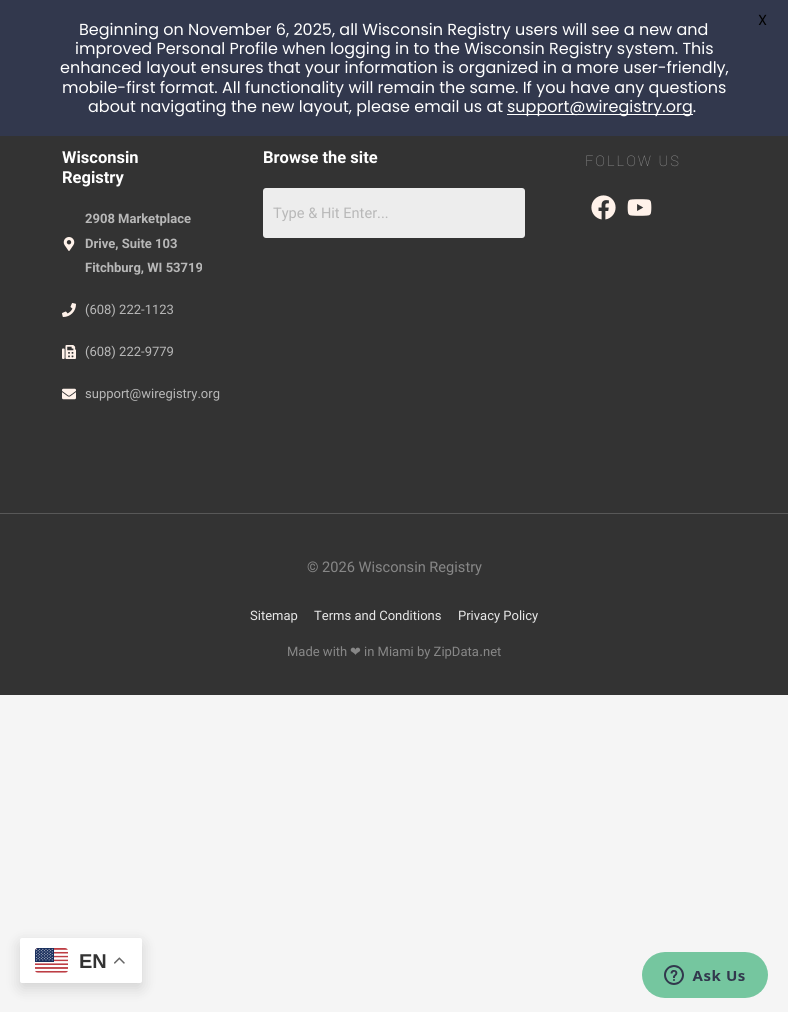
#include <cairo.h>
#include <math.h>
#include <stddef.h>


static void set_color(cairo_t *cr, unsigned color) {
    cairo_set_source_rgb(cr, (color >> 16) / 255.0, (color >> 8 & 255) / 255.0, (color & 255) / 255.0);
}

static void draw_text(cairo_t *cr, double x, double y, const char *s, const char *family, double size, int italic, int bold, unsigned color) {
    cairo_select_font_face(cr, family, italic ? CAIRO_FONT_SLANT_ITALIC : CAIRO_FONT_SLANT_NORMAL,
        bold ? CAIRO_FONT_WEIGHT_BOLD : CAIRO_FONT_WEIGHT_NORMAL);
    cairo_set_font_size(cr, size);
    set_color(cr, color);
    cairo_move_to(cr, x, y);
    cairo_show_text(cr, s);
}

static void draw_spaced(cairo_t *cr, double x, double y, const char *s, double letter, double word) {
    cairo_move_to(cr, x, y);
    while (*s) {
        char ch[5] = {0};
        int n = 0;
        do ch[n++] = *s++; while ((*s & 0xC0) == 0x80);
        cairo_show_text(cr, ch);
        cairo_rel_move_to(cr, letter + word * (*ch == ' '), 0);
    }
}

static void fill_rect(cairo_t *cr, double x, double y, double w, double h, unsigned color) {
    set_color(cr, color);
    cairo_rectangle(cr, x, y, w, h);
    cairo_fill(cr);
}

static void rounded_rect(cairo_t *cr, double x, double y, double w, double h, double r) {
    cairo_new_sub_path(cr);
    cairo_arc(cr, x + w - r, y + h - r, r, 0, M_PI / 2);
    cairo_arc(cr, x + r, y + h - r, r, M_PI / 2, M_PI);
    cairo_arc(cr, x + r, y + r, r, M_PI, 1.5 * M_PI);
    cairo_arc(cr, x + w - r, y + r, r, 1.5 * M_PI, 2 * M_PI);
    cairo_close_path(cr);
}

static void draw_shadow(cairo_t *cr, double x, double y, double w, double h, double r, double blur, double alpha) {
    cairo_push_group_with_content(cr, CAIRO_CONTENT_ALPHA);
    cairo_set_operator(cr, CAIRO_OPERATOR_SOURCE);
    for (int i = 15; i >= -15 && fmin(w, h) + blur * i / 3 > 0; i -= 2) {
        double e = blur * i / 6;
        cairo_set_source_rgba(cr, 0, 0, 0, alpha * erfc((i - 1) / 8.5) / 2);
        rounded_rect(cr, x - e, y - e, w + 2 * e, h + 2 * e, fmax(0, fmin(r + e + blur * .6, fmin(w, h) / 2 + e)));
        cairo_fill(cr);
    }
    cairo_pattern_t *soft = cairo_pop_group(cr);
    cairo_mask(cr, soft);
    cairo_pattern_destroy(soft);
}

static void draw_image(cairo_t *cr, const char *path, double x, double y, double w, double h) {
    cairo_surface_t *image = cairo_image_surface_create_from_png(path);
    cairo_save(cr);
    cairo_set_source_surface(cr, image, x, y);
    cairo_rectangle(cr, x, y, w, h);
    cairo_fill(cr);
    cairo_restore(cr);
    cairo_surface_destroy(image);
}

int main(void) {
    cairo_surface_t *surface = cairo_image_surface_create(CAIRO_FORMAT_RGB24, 788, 1012);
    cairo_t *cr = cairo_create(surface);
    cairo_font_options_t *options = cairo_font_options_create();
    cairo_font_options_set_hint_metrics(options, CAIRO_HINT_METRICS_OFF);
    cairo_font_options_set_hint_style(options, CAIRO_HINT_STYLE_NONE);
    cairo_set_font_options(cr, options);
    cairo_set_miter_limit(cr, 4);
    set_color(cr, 0xF5F5F5);
    cairo_paint(cr);
    fill_rect(cr, 0, 0, 788, 136, 0x32384D);
    draw_text(cr, 758, 25, "X", "Poppins", 14.6, 0, 0, 0x000000);
    draw_text(cr, 79, 35, "Beginning on November 6, 2025, all Wisconsin Registry users will see a new and", "Poppins", 16, 0, 0, 0xFFFFFF);
    draw_text(cr, 75, 54, "improved Personal Profile when logging in to the Wisconsin Registry system. This", "Poppins", 16, 0, 0, 0xFFFFFF);
    draw_text(cr, 60, 73, "enhanced layout ensures that your information is organized in a more user-friendly,", "Poppins", 16, 0, 0, 0xFFFFFF);
    draw_text(cr, 62, 93, "mobile-first format. All functionality will remain the same. If you have any questions", "Poppins", 16, 0, 0, 0xFFFFFF);
    draw_text(cr, 88, 112, "about navigating the new layout, please email us at", "Poppins", 16, 0, 0, 0xFFFFFF);
    fill_rect(cr, 507, 114, 186, 1, 0xFFFFFF);
    draw_text(cr, 507, 112, "support@wiregistry.org.", "Poppins", 16, 0, 0, 0xFFFFFF);
    fill_rect(cr, 0, 136, 788, 377, 0x333333);
    draw_text(cr, 62, 163, "Wisconsin", "Roboto", 16.5, 0, 1, 0xFFFFFF);
    draw_text(cr, 62, 183, "Registry", "Roboto", 16.5, 0, 1, 0xFFFFFF);
    draw_image(cr, "assets/img1.png", 63, 237, 12, 14);
    draw_text(cr, 85, 223, "2908 Marketplace", "Roboto", 13, 0, 1, 0xB8B8B8);
    draw_text(cr, 85, 248, "Drive, Suite 103", "Roboto", 13, 0, 1, 0xB8B8B8);
    draw_text(cr, 85, 272, "Fitchburg, WI 53719", "Roboto", 13, 0, 1, 0xB8B8B8);
    draw_image(cr, "assets/img2.png", 62, 303, 14, 14);
    draw_text(cr, 85, 314, "(608) 222-1123", "Roboto", 13, 0, 0, 0xB8B8B8);
    draw_image(cr, "assets/img3.png", 62, 345, 14, 14);
    draw_text(cr, 85, 356, "(608) 222-9779", "Roboto", 13, 0, 0, 0xB8B8B8);
    draw_image(cr, "assets/img4.png", 62, 388, 14, 12);
    draw_text(cr, 85, 398, "support@wiregistry.org", "Roboto", 13, 0, 0, 0xB8B8B8);
    draw_text(cr, 263, 163, "Browse the site", "Roboto", 16.5, 0, 1, 0xFFFFFF);
    set_color(cr, 0xEDEDED);
    rounded_rect(cr, 263, 188, 262, 50, 3);
    cairo_fill(cr);
    draw_text(cr, 273, 218, "Type & Hit Enter...", "Roboto", 14.6, 0, 0, 0xB8B8B8);
    cairo_select_font_face(cr, "Roboto Thin", CAIRO_FONT_SLANT_NORMAL, CAIRO_FONT_WEIGHT_NORMAL);
    set_color(cr, 0x999999);
    draw_spaced(cr, 585, 166, "FOLLOW US", 2, 0);
    draw_image(cr, "assets/img5.png", 591, 195, 25, 25);
    draw_image(cr, "assets/img6.png", 627, 199, 25, 17);
    fill_rect(cr, 0, 514, 788, 181, 0x333333);
    fill_rect(cr, 0, 513, 788, 1, 0x585858);
    draw_text(cr, 307, 572, "© 2026 Wisconsin Registry", "Roboto", 14.6, 0, 0, 0x878787);
    draw_text(cr, 250, 620, "Sitemap", "Roboto", 13, 0, 0, 0xE7E7E7);
    draw_text(cr, 314, 620, "Terms and Conditions", "Roboto", 13, 0, 0, 0xE7E7E7);
    draw_text(cr, 458, 620, "Privacy Policy", "Roboto", 13, 0, 0, 0xE7E7E7);
    draw_text(cr, 287, 656, "Made with", "Roboto", 13, 0, 0, 0x878787);
    draw_text(cr, 350, 656, "❤", "DejaVu Sans", 13, 0, 0, 0x878787);
    draw_text(cr, 364, 656, "in Miami by ZipData", "Roboto", 13, 0, 0, 0x878787);
    draw_text(cr, 479, 656, ".", "DejaVu Sans", 13, 0, 0, 0x878787);
    draw_text(cr, 483, 656, "net", "Roboto", 13, 0, 0, 0x878787);
    set_color(cr, 0x000000);
    draw_shadow(cr, 20, 943, 122, 45, 2, 7.5, 0.15);
    set_color(cr, 0xFFFFFF);
    rounded_rect(cr, 20, 938, 122, 45, 2);
    cairo_fill(cr);
    draw_image(cr, "assets/img7.png", 35, 948, 33, 25);
    draw_text(cr, 79, 968, "EN", "Liberation Sans", 20, 0, 1, 0x333333);
    draw_image(cr, "assets/img8.png", 114, 957, 11, 7);
    draw_image(cr, "assets/img9.png", 642, 952, 126, 46);
    cairo_surface_write_to_png(surface, "output.png");
    cairo_font_options_destroy(options);
    cairo_destroy(cr);
    cairo_surface_destroy(surface);
    return 0;
}
